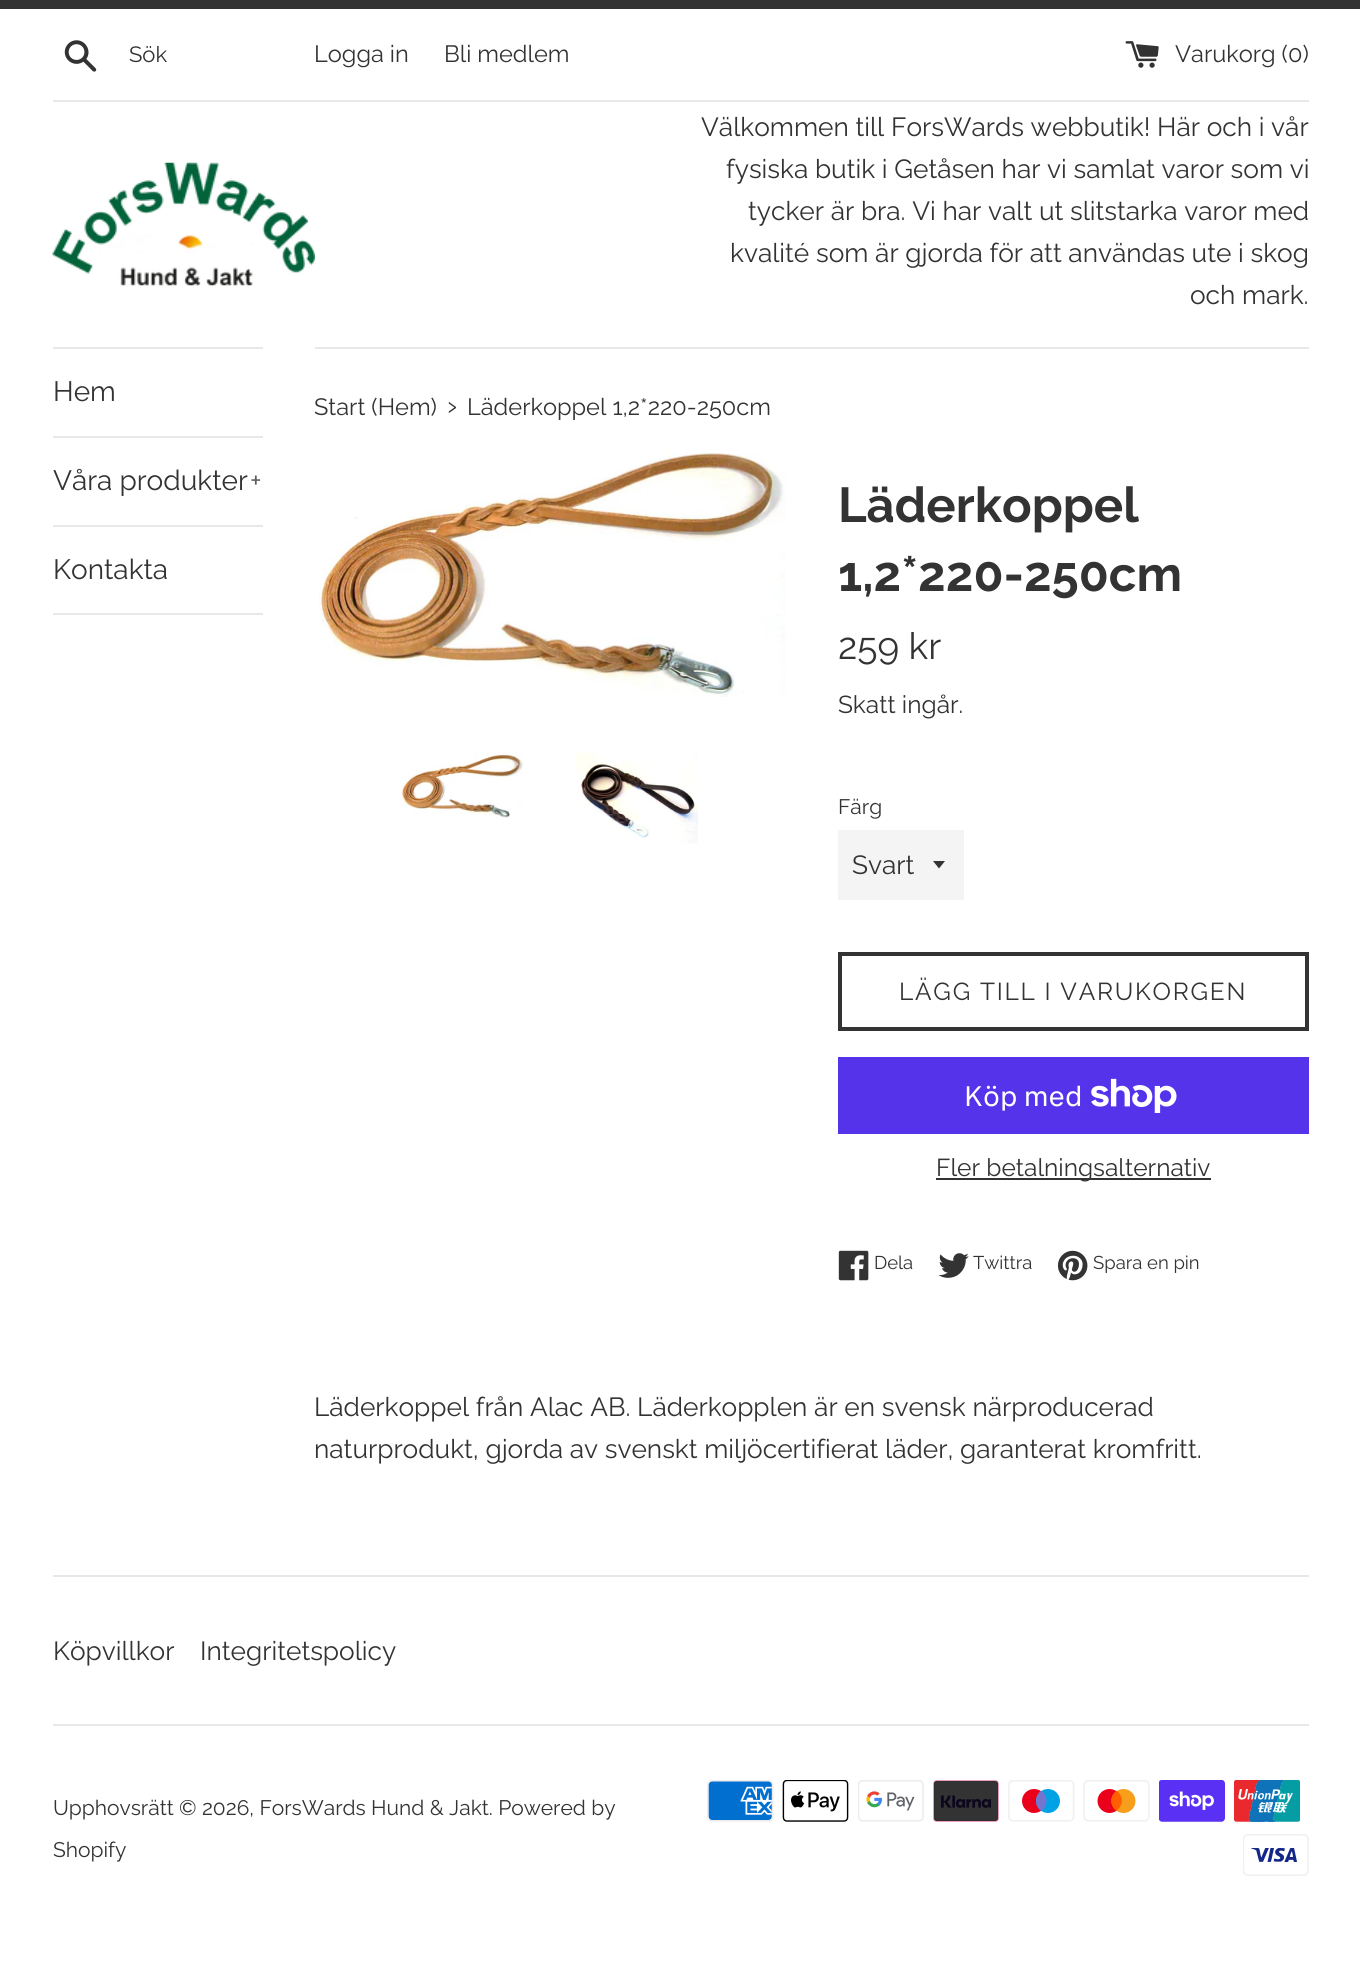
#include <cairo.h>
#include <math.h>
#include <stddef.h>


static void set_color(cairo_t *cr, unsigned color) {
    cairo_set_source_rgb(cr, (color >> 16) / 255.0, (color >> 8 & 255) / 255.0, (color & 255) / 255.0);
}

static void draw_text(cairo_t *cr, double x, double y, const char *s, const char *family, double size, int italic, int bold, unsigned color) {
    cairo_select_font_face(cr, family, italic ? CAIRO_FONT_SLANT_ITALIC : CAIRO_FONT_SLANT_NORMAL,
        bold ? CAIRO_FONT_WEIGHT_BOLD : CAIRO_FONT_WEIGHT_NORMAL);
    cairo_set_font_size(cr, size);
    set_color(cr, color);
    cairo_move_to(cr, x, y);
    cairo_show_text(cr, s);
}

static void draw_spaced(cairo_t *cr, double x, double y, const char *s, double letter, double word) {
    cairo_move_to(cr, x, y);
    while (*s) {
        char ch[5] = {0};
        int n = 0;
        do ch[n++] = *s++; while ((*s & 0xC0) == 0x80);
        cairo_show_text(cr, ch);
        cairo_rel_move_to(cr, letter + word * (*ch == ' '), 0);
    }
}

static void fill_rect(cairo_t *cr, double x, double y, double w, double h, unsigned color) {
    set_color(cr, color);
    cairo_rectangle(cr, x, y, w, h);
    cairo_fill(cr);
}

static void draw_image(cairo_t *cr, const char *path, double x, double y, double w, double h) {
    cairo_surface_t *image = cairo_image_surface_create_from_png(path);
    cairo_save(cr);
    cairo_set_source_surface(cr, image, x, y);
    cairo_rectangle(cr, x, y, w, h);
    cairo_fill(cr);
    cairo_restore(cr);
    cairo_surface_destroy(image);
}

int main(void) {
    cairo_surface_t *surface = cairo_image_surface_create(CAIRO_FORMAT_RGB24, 1360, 1986);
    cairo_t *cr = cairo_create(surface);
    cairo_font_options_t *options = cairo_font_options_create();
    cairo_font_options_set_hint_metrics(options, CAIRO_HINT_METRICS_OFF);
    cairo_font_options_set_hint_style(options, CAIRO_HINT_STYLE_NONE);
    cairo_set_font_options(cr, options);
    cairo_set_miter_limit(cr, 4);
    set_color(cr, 0xFFFFFF);
    cairo_paint(cr);
    fill_rect(cr, 0, 0, 1360, 9, 0x333333);
    draw_image(cr, "assets/img1.png", 64, 40, 33, 32);
    draw_text(cr, 129, 62, "Sök", "Raleway", 22, 0, 0, 0x333333);
    draw_text(cr, 314, 62, "Logga in", "Raleway", 23.6, 0, 0, 0x333333);
    draw_text(cr, 444, 62, "Bli medlem", "Raleway", 23.6, 0, 0, 0x333333);
    draw_image(cr, "assets/img2.png", 1125, 41, 34, 27);
    draw_text(cr, 1175, 62, "Varukorg (0)", "Raleway", 23.6, 0, 0, 0x333333);
    fill_rect(cr, 53, 100, 1256, 2, 0xE8E8E8);
    draw_image(cr, "assets/img3.png", 52, 162, 263, 124);
    draw_text(cr, 701, 136, "Välkommen till ForsWards webbutik! Här och i vår", "Raleway", 26.25, 0, 0, 0x333333);
    draw_text(cr, 726, 178, "fysiska butik i Getåsen har vi samlat varor som vi", "Raleway", 26.25, 0, 0, 0x333333);
    draw_text(cr, 748, 220, "tycker är bra. Vi har valt ut slitstarka varor med", "Raleway", 26.25, 0, 0, 0x333333);
    draw_text(cr, 730, 262, "kvalité som är gjorda för att användas ute i skog", "Raleway", 26.25, 0, 0, 0x333333);
    draw_text(cr, 1190, 304, "och mark.", "Raleway", 26.25, 0, 0, 0x333333);
    fill_rect(cr, 53, 347, 210, 2, 0xE8E8E8);
    fill_rect(cr, 53, 436, 210, 2, 0xE8E8E8);
    draw_text(cr, 53, 401, "Hem", "Raleway", 28, 0, 0, 0x333333);
    fill_rect(cr, 53, 525, 210, 2, 0xE8E8E8);
    draw_text(cr, 53, 490, "Våra produkter", "Raleway", 28, 0, 0, 0x333333);
    draw_text(cr, 250, 490, "+", "Raleway", 28, 0, 0, 0x5C5C5C);
    fill_rect(cr, 53, 613, 210, 2, 0xE8E8E8);
    draw_text(cr, 53, 579, "Kontakta", "Raleway", 28, 0, 0, 0x333333);
    fill_rect(cr, 315, 347, 994, 2, 0xE8E8E8);
    draw_text(cr, 314, 415, "Start (Hem)", "Raleway", 23.6, 0, 0, 0x333333);
    draw_text(cr, 447, 415, "›", "Raleway", 29, 0, 0, 0x333333);
    draw_text(cr, 467, 415, "Läderkoppel 1,2*220-250cm", "Raleway", 23.6, 0, 0, 0x333333);
    draw_image(cr, "assets/img4.png", 319, 452, 467, 245);
    draw_image(cr, "assets/img5.png", 401, 752, 122, 66);
    draw_image(cr, "assets/img6.png", 576, 752, 123, 92);
    draw_text(cr, 838, 522, "Läderkoppel", "Raleway", 49, 0, 1, 0x333333);
    draw_text(cr, 838, 591, "1,2*220-250cm", "Raleway", 49, 0, 1, 0x333333);
    draw_text(cr, 838, 659, "259 kr", "Raleway", 37, 0, 0, 0x333333);
    draw_text(cr, 838, 713, "Skatt ingår.", "Raleway", 24.5, 0, 0, 0x333333);
    draw_text(cr, 838, 814, "Färg", "Raleway", 21, 0, 0, 0x333333);
    fill_rect(cr, 838, 830, 126, 70, 0xF4F4F4);
    set_color(cr, 0x333333);
    cairo_new_path(cr);
    cairo_move_to(cr, 933, 861);
    cairo_line_to(cr, 939, 868.5);
    cairo_line_to(cr, 945, 861);
    cairo_close_path(cr);
    cairo_fill(cr);
    draw_text(cr, 852, 874, "Svart", "Raleway", 26.25, 0, 0, 0x333333);
    cairo_rectangle(cr, 840, 954, 467, 75);
    cairo_set_line_width(cr, 4);
    cairo_stroke(cr);
    cairo_set_font_size(cr, 24.5);
    draw_spaced(cr, 899, 1000, "LÄGG TILL I VARUKORGEN", 1.75, 0);
    fill_rect(cr, 838, 1057, 471, 77, 0x5433EB);
    draw_text(cr, 964, 1106, "Köp med", "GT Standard", 28, 0, 0, 0xFFFFFF);
    draw_image(cr, "assets/img7.png", 1091, 1078, 86, 35);
    fill_rect(cr, 936, 1178, 275, 2, 0x333333);
    draw_text(cr, 936, 1176, "Fler betalningsalternativ", "Raleway", 24.5, 0, 0, 0x333333);
    draw_image(cr, "assets/img8.png", 838, 1250, 31, 31);
    draw_text(cr, 874, 1269, "Dela", "Raleway", 18.5, 0, 0, 0x333333);
    draw_image(cr, "assets/img9.png", 938, 1253, 31, 25);
    draw_text(cr, 973, 1269, "Twittra", "Raleway", 18.5, 0, 0, 0x333333);
    draw_image(cr, "assets/img10.png", 1057, 1250, 31, 31);
    draw_text(cr, 1093, 1269, "Spara en pin", "Raleway", 18.5, 0, 0, 0x333333);
    draw_text(cr, 314, 1416, "Läderkoppel från Alac AB. Läderkopplen är en svensk närproducerad", "Raleway", 26.25, 0, 0, 0x333333);
    draw_text(cr, 314, 1458, "naturprodukt, gjorda av svenskt miljöcertifierat läder, garanterat kromfritt.", "Raleway", 26.25, 0, 0, 0x333333);
    fill_rect(cr, 53, 1575, 1256, 2, 0xE8E8E8);
    draw_text(cr, 53, 1660, "Köpvillkor", "Raleway", 26.25, 0, 0, 0x333333);
    draw_text(cr, 200, 1660, "Integritetspolicy", "Raleway", 26.25, 0, 0, 0x333333);
    fill_rect(cr, 53, 1724, 1256, 2, 0xE8E8E8);
    draw_text(cr, 53, 1815, "Upphovsrätt © 2026, ForsWards Hund & Jakt. Powered by", "Raleway", 21, 0, 0, 0x333333);
    draw_text(cr, 53, 1857, "Shopify", "Raleway", 21, 0, 0, 0x333333);
    draw_image(cr, "assets/img11.png", 707, 1780, 67, 42);
    draw_image(cr, "assets/img12.png", 782, 1780, 67, 42);
    draw_image(cr, "assets/img13.png", 858, 1780, 66, 42);
    draw_image(cr, "assets/img14.png", 933, 1780, 66, 42);
    draw_image(cr, "assets/img15.png", 1008, 1780, 67, 42);
    draw_image(cr, "assets/img16.png", 1083, 1780, 67, 42);
    draw_image(cr, "assets/img17.png", 1159, 1780, 66, 42);
    draw_image(cr, "assets/img18.png", 1234, 1780, 66, 42);
    draw_image(cr, "assets/img19.png", 1243, 1834, 66, 42);
    cairo_surface_write_to_png(surface, "output.png");
    cairo_font_options_destroy(options);
    cairo_destroy(cr);
    cairo_surface_destroy(surface);
    return 0;
}
